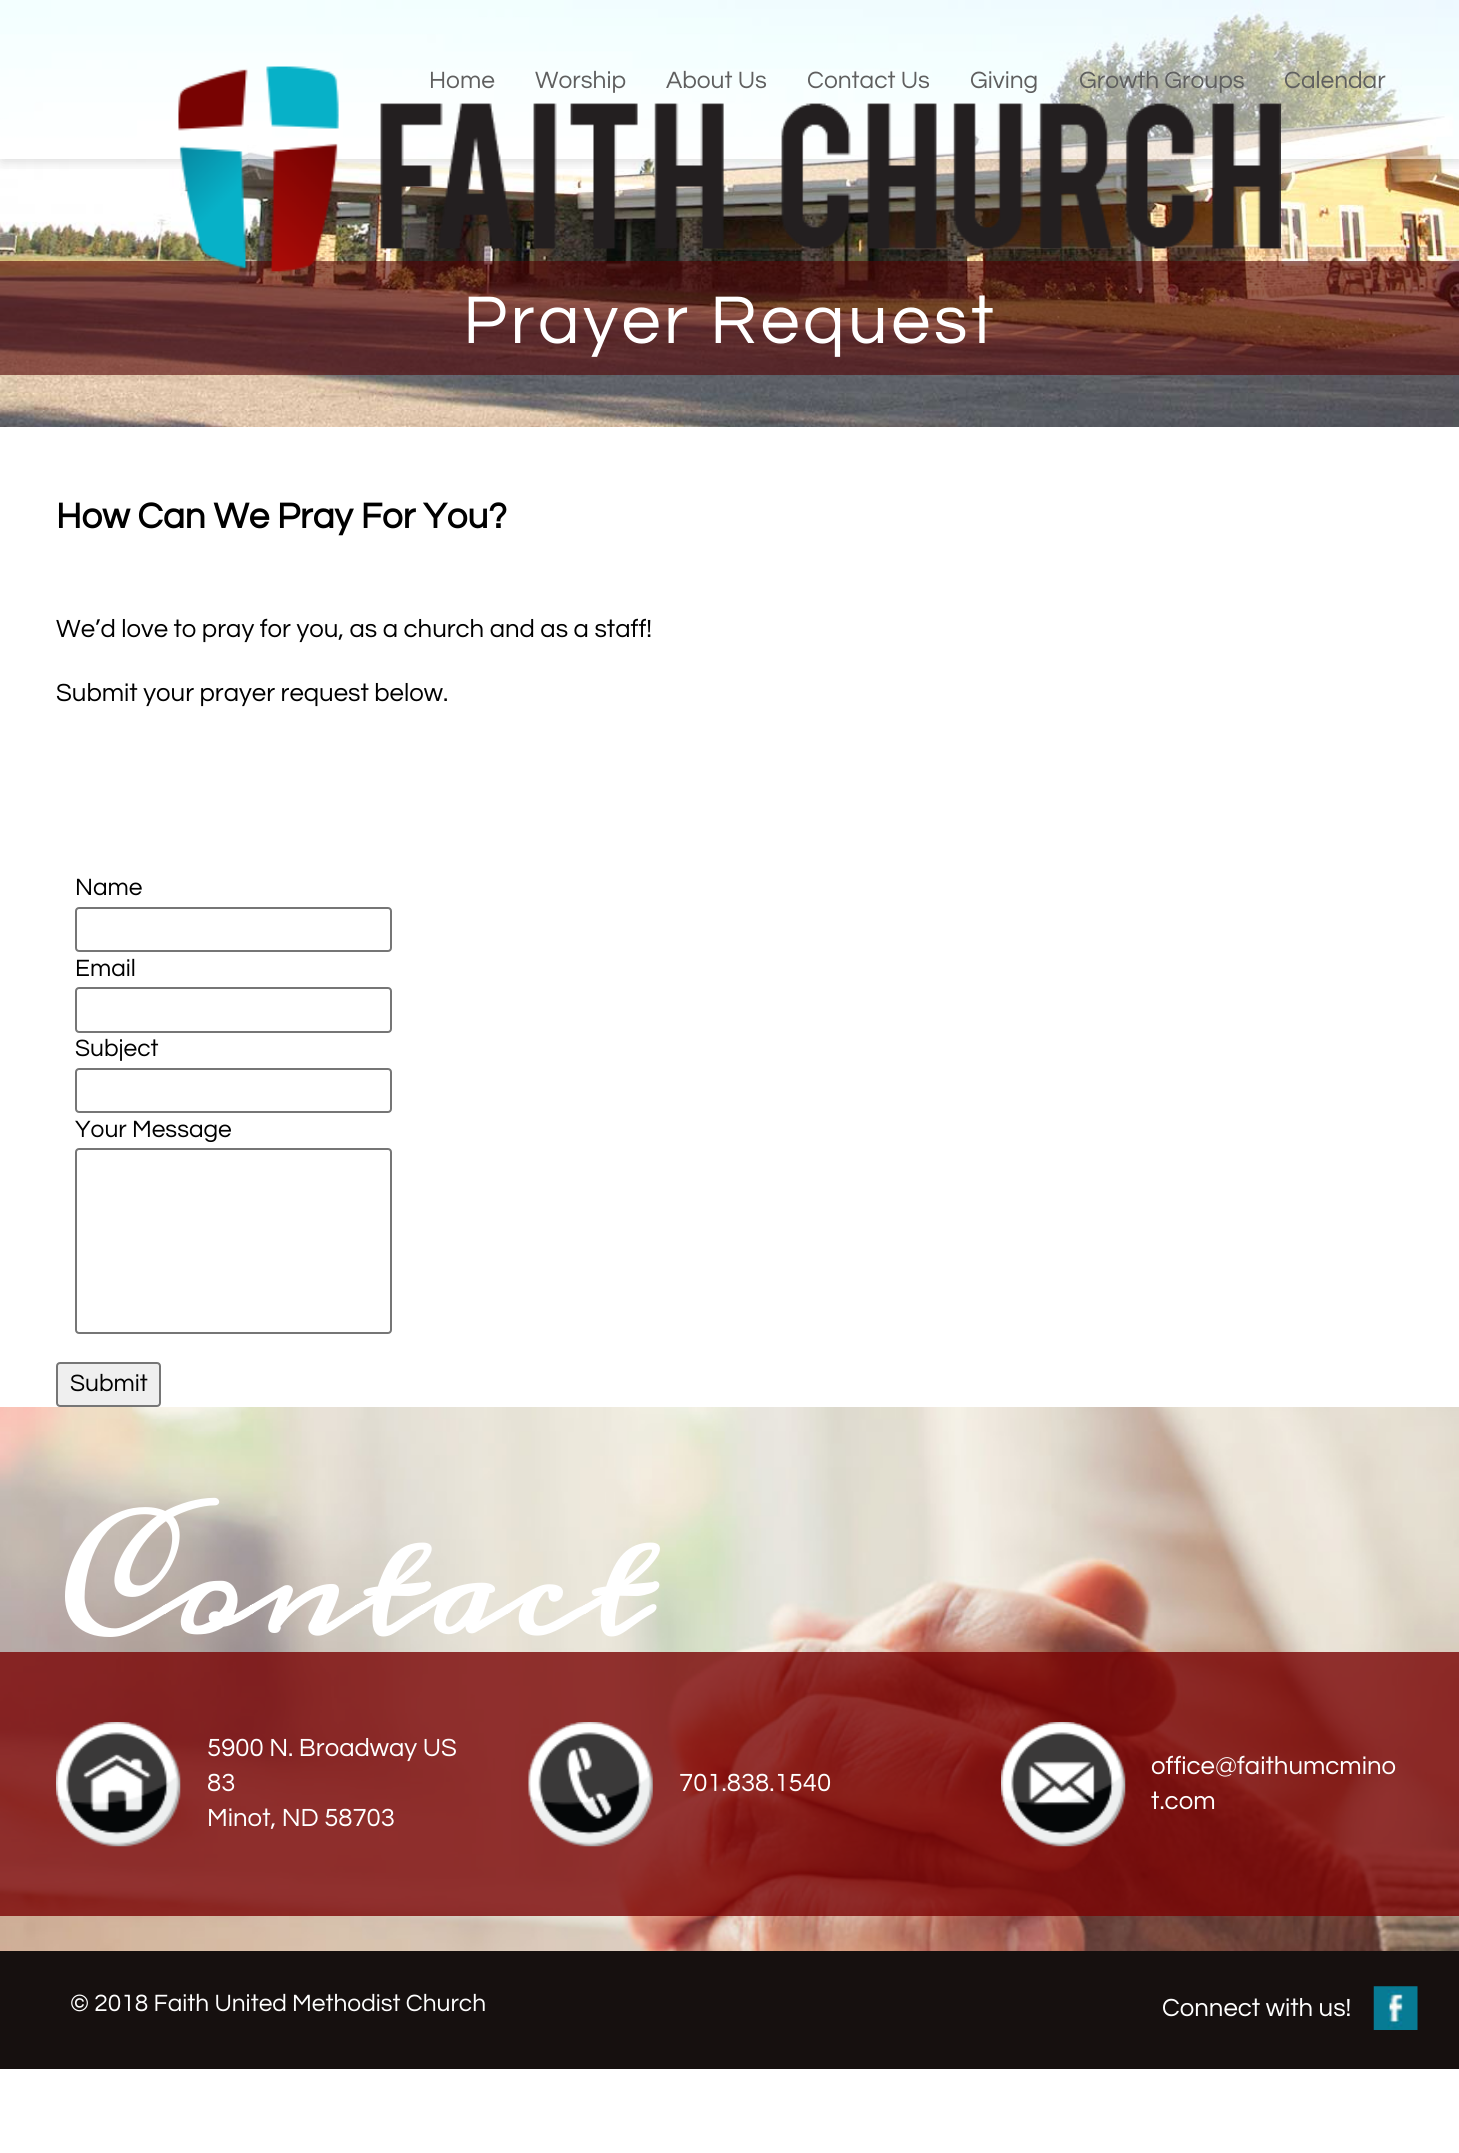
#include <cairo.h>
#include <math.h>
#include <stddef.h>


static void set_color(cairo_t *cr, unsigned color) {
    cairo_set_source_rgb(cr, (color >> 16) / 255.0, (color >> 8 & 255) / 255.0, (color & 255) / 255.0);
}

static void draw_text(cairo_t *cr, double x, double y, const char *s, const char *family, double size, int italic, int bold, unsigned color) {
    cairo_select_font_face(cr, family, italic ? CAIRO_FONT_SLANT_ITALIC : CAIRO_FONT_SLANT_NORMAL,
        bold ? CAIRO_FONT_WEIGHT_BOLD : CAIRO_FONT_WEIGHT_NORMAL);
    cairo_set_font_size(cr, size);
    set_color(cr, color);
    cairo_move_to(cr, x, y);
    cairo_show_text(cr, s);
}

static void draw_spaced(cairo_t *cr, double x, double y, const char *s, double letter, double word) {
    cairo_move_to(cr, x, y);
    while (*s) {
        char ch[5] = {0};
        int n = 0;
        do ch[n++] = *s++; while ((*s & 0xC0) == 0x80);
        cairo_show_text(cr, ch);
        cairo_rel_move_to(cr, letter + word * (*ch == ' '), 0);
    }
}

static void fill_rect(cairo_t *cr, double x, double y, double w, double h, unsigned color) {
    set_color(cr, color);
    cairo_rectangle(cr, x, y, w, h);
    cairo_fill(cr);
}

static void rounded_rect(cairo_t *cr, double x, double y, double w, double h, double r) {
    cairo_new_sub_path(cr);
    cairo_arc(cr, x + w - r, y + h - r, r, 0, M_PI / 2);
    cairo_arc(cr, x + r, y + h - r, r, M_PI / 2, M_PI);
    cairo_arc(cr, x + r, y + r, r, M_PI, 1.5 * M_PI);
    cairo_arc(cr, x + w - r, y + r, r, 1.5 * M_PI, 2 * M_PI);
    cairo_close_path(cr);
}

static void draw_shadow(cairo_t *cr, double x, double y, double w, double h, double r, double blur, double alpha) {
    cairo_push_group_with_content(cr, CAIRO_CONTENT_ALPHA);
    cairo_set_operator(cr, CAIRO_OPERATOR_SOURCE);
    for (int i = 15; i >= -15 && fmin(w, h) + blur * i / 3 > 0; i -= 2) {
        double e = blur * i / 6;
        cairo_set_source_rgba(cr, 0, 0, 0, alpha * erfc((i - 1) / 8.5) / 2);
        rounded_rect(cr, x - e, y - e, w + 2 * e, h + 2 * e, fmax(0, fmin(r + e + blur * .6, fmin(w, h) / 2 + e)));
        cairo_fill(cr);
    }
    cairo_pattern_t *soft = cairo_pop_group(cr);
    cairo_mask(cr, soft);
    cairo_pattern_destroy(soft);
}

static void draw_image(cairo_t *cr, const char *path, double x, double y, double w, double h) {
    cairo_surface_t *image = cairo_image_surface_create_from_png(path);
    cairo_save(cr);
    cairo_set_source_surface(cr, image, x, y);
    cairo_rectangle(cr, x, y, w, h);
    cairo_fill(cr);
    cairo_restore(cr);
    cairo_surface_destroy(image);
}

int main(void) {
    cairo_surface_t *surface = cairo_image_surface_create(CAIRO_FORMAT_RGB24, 1459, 2153);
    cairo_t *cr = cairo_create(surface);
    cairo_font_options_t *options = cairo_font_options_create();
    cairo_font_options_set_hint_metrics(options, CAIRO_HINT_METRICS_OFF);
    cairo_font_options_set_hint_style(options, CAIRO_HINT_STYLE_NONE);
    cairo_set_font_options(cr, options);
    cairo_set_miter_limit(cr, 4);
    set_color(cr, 0xFFFFFF);
    cairo_paint(cr);
    draw_image(cr, "assets/img2.png", 0, 0, 1459, 427);
    cairo_save(cr);
    cairo_rectangle(cr, 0, 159, 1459, 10);
    cairo_clip(cr);
    set_color(cr, 0x000000);
    draw_shadow(cr, 2, 2, 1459, 159, 0, 7, 0.15);
    cairo_restore(cr);
    cairo_set_source_rgba(cr, 1, 1, 1, 0.5);
    cairo_rectangle(cr, 0, 0, 1459, 159);
    cairo_fill(cr);
    draw_text(cr, 429, 88, "Home", "Questrial", 24.5, 0, 0, 0x5F5F5F);
    draw_text(cr, 535, 88, "Worship", "Questrial", 24.5, 0, 0, 0x5F5F5F);
    draw_text(cr, 666, 88, "About Us", "Questrial", 24.5, 0, 0, 0x5F5F5F);
    draw_text(cr, 807, 88, "Contact Us", "Questrial", 24.5, 0, 0, 0x5F5F5F);
    draw_text(cr, 970, 88, "Giving", "Questrial", 24.5, 0, 0, 0x5F5F5F);
    draw_text(cr, 1079, 88, "Growth Groups", "Questrial", 24.5, 0, 0, 0x5F5F5F);
    draw_text(cr, 1284, 88, "Calendar", "Questrial", 24.5, 0, 0, 0x5F5F5F);
    cairo_set_source_rgba(cr, 0.322, 0.012, 0.008, 0.6);
    cairo_rectangle(cr, 0, 261, 1459, 114);
    cairo_fill(cr);
    draw_image(cr, "assets/img1.png", 178, 66, 1103, 206);
    cairo_set_font_size(cr, 70);
    set_color(cr, 0xFFFFFF);
    draw_spaced(cr, 463, 343, "Prayer Request", 3.5, 0);
    draw_text(cr, 56, 528, "How Can We Pray For You?", "Questrial", 36.75, 0, 1, 0x000000);
    draw_text(cr, 56, 637, "We’d love to pray for you, as a church and as a staff!", "Questrial", 25.75, 0, 0, 0x000000);
    draw_text(cr, 56, 701, "Submit your prayer request below.", "Questrial", 25.75, 0, 0, 0x000000);
    draw_text(cr, 75, 895, "Name", "Questrial", 24.5, 0, 0, 0x000000);
    rounded_rect(cr, 76, 908, 315, 43, 3);
    set_color(cr, 0x767676);
    cairo_stroke(cr);
    draw_text(cr, 75, 976, "Email", "Questrial", 24.5, 0, 0, 0x000000);
    rounded_rect(cr, 76, 988, 315, 44, 3);
    set_color(cr, 0x767676);
    cairo_stroke(cr);
    draw_text(cr, 75, 1056, "Subject", "Questrial", 24.5, 0, 0, 0x000000);
    rounded_rect(cr, 76, 1069, 315, 43, 3);
    set_color(cr, 0x767676);
    cairo_stroke(cr);
    draw_text(cr, 75, 1137, "Your Message", "Questrial", 24.5, 0, 0, 0x000000);
    rounded_rect(cr, 76, 1149, 315, 184, 3);
    set_color(cr, 0x767676);
    cairo_stroke(cr);
    set_color(cr, 0xEFEFEF);
    rounded_rect(cr, 57, 1363, 103, 43, 3);
    cairo_fill_preserve(cr);
    set_color(cr, 0x767676);
    cairo_stroke(cr);
    draw_text(cr, 70, 1391, "Submit", "Questrial", 24.5, 0, 0, 0x000000);
    draw_image(cr, "assets/img3.png", 0, 1407, 1459, 544);
    draw_text(cr, 56, 1633, "Contact", "Meddon", 122.5, 0, 1, 0xFFFFFF);
    cairo_set_source_rgba(cr, 0.475, 0.012, 0.012, 0.8);
    cairo_rectangle(cr, 0, 1652, 1459, 264);
    cairo_fill(cr);
    draw_image(cr, "assets/img4.png", 56, 1722, 125, 125);
    draw_text(cr, 207, 1756, "5900 N. Broadway US", "Questrial", 25.75, 0, 0, 0xFFFFFF);
    draw_text(cr, 207, 1791, "83", "Questrial", 25.75, 0, 0, 0xFFFFFF);
    draw_text(cr, 207, 1826, "Minot, ND 58703", "Questrial", 25.75, 0, 0, 0xFFFFFF);
    draw_image(cr, "assets/img5.png", 528, 1722, 125, 125);
    draw_text(cr, 679, 1791, "701.838.1540", "Questrial", 25.75, 0, 0, 0xFFFFFF);
    draw_image(cr, "assets/img6.png", 1001, 1722, 125, 125);
    draw_text(cr, 1151, 1774, "office@faithumcmino", "Questrial", 25.75, 0, 0, 0xFFFFFF);
    draw_text(cr, 1151, 1809, "t.com", "Questrial", 25.75, 0, 0, 0xFFFFFF);
    fill_rect(cr, 0, 1951, 1459, 118, 0x16100F);
    draw_text(cr, 70, 2011, "© 2018 Faith United Methodist Church", "Questrial", 24.5, 0, 0, 0xFFFFFF);
    draw_text(cr, 1162, 2016, "Connect with us!", "Questrial", 25.75, 0, 0, 0xFFFFFF);
    draw_image(cr, "assets/img7.png", 1373, 1986, 45, 44);
    cairo_surface_write_to_png(surface, "output.png");
    cairo_font_options_destroy(options);
    cairo_destroy(cr);
    cairo_surface_destroy(surface);
    return 0;
}
